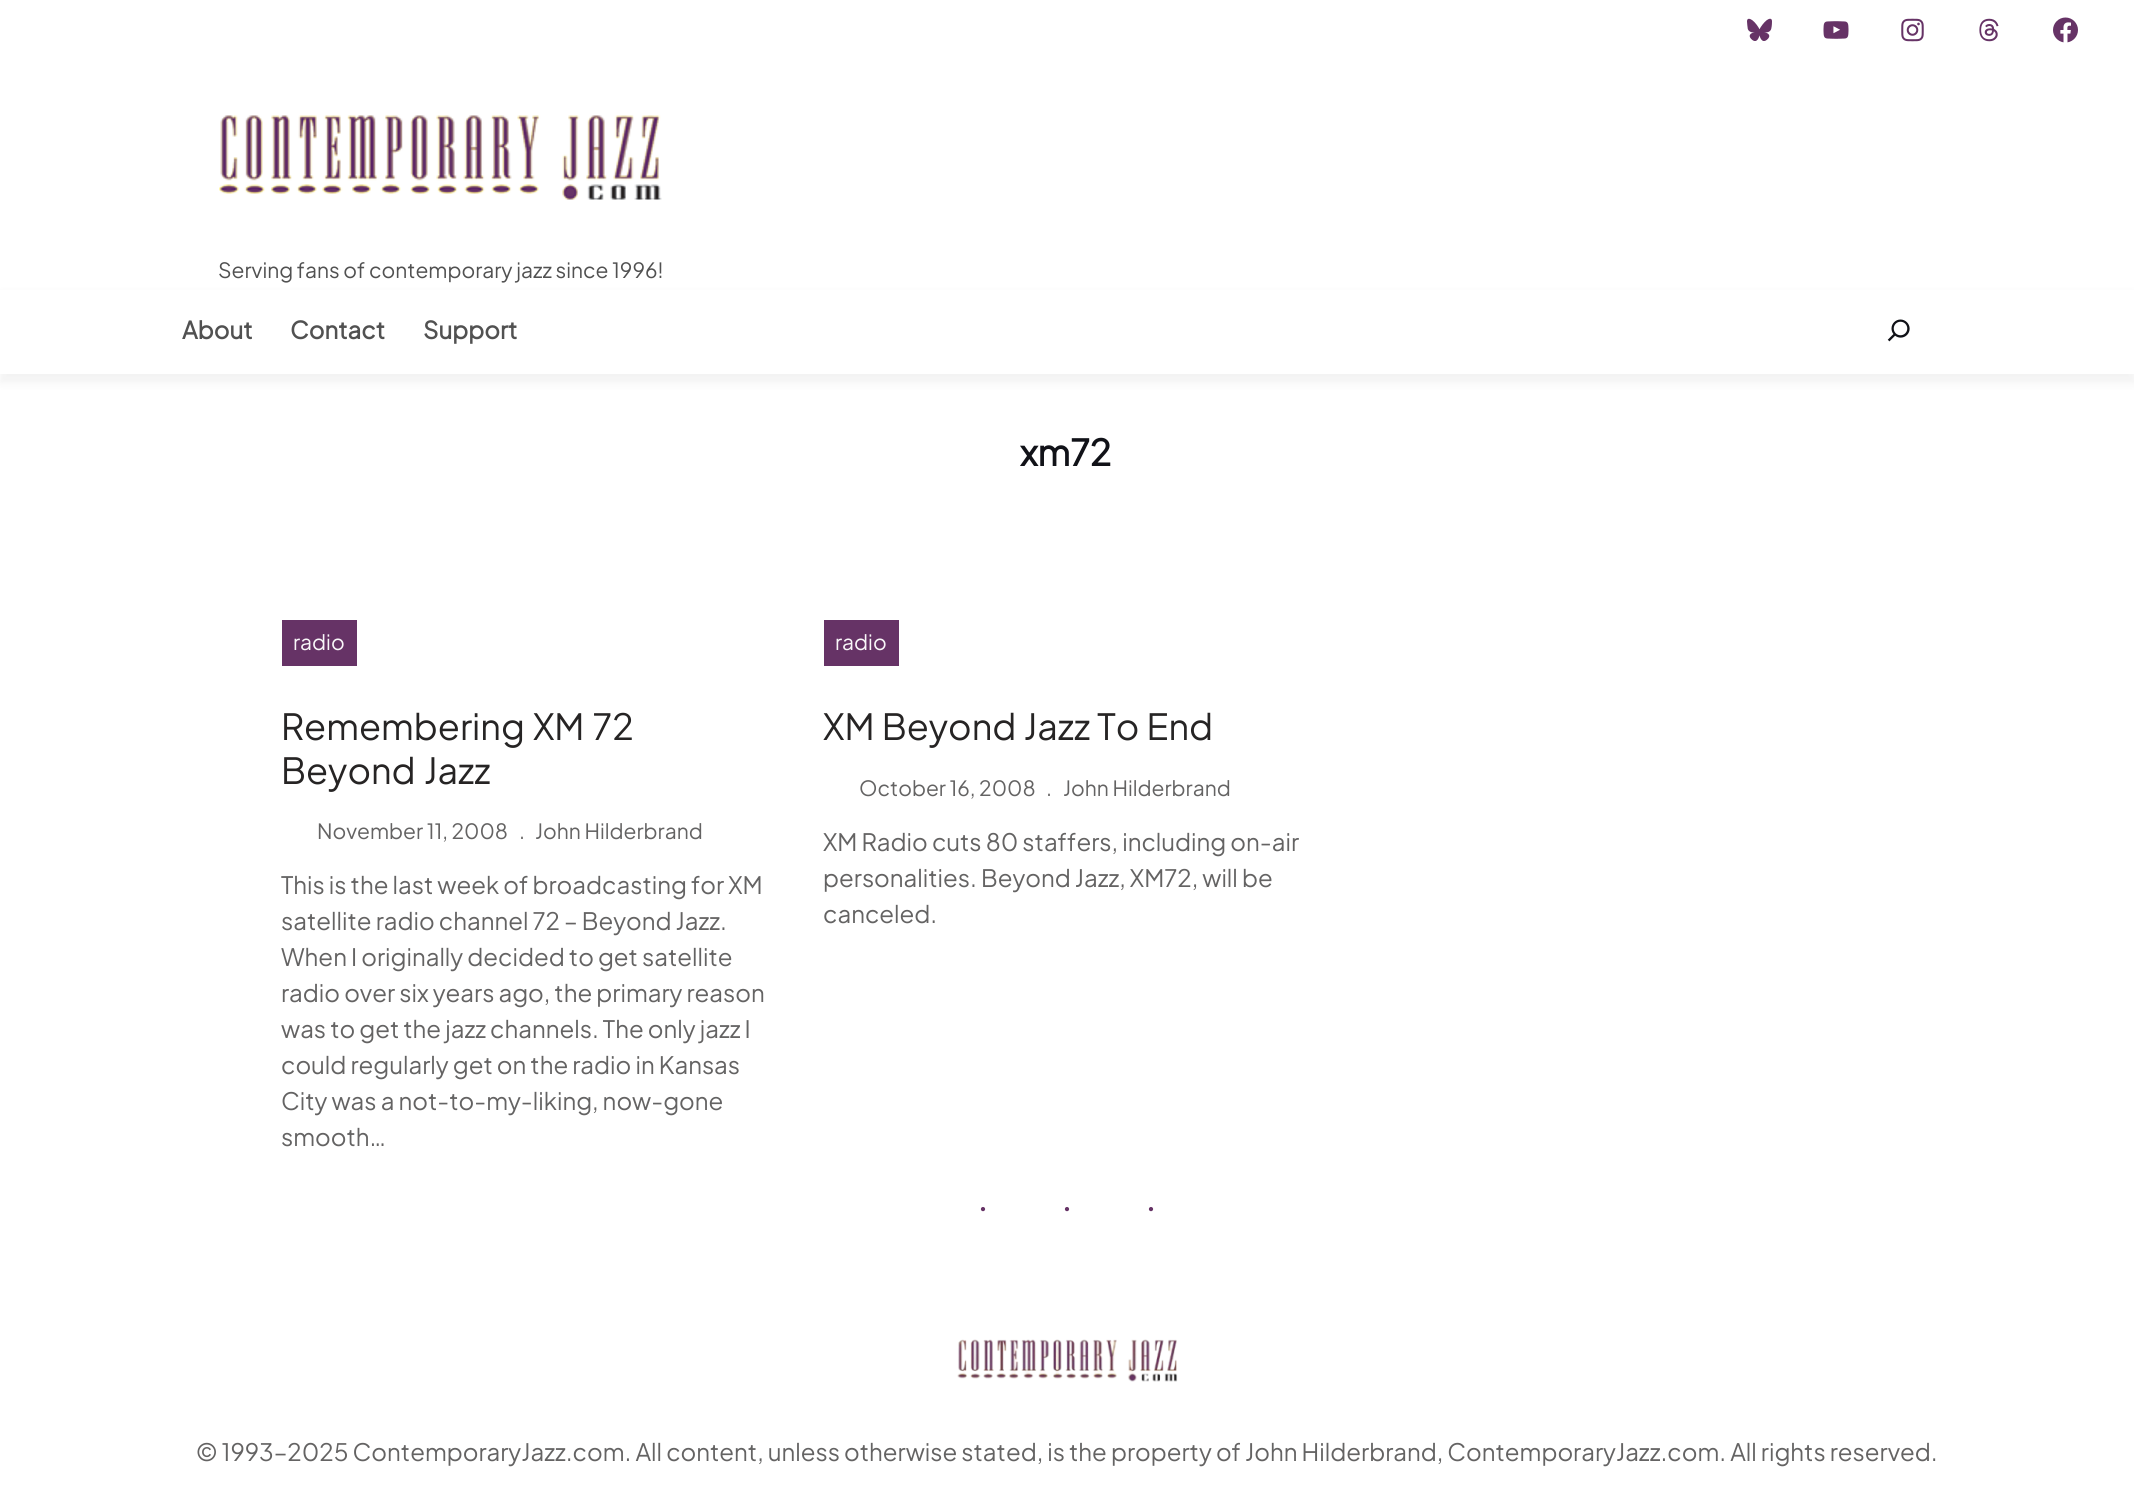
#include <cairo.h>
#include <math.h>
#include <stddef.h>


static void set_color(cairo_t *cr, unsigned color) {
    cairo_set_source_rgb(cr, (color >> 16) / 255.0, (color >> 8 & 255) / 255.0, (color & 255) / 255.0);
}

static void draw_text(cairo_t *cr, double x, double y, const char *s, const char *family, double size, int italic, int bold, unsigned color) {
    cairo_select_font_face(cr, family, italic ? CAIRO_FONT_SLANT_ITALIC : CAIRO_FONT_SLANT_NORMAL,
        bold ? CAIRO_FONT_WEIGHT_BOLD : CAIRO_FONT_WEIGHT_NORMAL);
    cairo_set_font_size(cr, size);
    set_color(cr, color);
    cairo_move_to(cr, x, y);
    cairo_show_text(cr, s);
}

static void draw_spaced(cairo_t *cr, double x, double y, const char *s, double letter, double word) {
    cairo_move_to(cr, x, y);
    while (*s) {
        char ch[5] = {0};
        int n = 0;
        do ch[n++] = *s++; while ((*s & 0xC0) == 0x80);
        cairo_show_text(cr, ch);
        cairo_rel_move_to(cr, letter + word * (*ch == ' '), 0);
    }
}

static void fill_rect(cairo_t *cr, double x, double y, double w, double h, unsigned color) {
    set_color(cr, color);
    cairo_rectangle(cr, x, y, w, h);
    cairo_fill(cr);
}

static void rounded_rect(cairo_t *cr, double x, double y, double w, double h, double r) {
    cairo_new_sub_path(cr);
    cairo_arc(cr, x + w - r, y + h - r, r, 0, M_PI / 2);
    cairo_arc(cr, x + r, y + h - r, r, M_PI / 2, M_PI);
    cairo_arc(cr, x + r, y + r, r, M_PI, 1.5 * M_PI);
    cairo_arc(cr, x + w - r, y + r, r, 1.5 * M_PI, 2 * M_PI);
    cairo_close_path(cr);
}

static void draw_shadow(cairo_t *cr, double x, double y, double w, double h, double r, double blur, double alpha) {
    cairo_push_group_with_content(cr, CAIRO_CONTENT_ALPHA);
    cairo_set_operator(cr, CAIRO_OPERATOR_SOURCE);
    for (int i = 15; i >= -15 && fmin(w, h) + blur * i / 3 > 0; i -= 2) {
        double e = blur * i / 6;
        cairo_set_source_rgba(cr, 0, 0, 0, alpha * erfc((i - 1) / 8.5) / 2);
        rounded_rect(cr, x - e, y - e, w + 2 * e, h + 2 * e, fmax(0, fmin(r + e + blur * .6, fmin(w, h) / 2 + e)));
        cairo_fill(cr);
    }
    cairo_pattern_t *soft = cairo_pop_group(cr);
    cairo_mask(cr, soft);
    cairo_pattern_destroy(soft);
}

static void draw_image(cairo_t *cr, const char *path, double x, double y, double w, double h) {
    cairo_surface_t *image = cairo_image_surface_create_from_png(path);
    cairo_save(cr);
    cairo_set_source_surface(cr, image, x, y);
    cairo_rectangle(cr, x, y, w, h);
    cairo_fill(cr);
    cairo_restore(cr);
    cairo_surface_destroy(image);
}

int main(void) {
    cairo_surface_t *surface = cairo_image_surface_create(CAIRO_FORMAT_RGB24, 2134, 1493);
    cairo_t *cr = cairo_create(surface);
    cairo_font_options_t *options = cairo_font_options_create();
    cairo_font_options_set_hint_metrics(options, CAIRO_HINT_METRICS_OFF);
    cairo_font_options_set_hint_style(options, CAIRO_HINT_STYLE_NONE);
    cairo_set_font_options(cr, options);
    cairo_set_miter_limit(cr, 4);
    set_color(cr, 0xFFFFFF);
    cairo_paint(cr);
    draw_image(cr, "assets/img1.png", 1747, 18, 25, 23);
    draw_image(cr, "assets/img2.png", 1823, 21, 26, 18);
    draw_image(cr, "assets/img3.png", 1901, 18, 23, 24);
    draw_image(cr, "assets/img4.png", 1979, 18, 20, 24);
    draw_image(cr, "assets/img5.png", 2053, 17, 25, 26);
    draw_image(cr, "assets/img6.png", 219, 115, 443, 85);
    draw_text(cr, 218, 278, "Serving fans of contemporary jazz since 1996!", "Plus Jakarta Sans", 21, 0, 0, 0x515151);
    set_color(cr, 0x000000);
    draw_shadow(cr, 0, 294, 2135, 89, 0, 4.5, 0.05);
    fill_rect(cr, 0, 290, 2134, 84, 0xFFFFFF);
    draw_text(cr, 182, 339, "About", "Plus Jakarta Sans", 24, 0, 1, 0x515151);
    draw_text(cr, 290, 339, "Contact", "Plus Jakarta Sans", 24, 0, 1, 0x515151);
    draw_text(cr, 423, 339, "Support", "Plus Jakarta Sans", 24, 0, 1, 0x515151);
    draw_image(cr, "assets/img7.png", 1887, 319, 23, 23);
    draw_text(cr, 1020, 466, "xm72", "Plus Jakarta Sans", 36, 0, 1, 0x111218);
    fill_rect(cr, 282, 620, 75, 46, 0x663366);
    draw_text(cr, 293, 650, "radio", "Plus Jakarta Sans", 21, 0, 0, 0xFFFFFF);
    cairo_set_source_rgba(cr, 0.4, 0.2, 0.4, 0.04);
    cairo_rectangle(cr, 295, 634, 49, 16);
    cairo_fill(cr);
    cairo_set_font_size(cr, 36);
    set_color(cr, 0x262424);
    draw_spaced(cr, 281, 740, "Remembering XM 72", 0, 2);
    draw_spaced(cr, 281, 784, "Beyond Jazz", 0, 2);
    draw_text(cr, 317, 839, "November 11, 2008", "Plus Jakarta Sans", 21, 0, 0, 0x646363);
    draw_text(cr, 519, 839, ".", "Plus Jakarta Sans", 21, 0, 0, 0x646363);
    draw_text(cr, 535, 839, "John Hilderbrand", "Plus Jakarta Sans", 21, 0, 0, 0x646363);
    draw_text(cr, 281, 894, "This is the last week of broadcasting for XM", "Plus Jakarta Sans", 24, 0, 0, 0x646363);
    draw_text(cr, 281, 930, "satellite radio channel 72 – Beyond Jazz.", "Plus Jakarta Sans", 24, 0, 0, 0x646363);
    draw_text(cr, 281, 966, "When I originally decided to get satellite", "Plus Jakarta Sans", 24, 0, 0, 0x646363);
    draw_text(cr, 281, 1002, "radio over six years ago, the primary reason", "Plus Jakarta Sans", 24, 0, 0, 0x646363);
    draw_text(cr, 281, 1038, "was to get the jazz channels. The only jazz I", "Plus Jakarta Sans", 24, 0, 0, 0x646363);
    draw_text(cr, 281, 1074, "could regularly get on the radio in Kansas", "Plus Jakarta Sans", 24, 0, 0, 0x646363);
    draw_text(cr, 281, 1110, "City was a not-to-my-liking, now-gone", "Plus Jakarta Sans", 24, 0, 0, 0x646363);
    draw_text(cr, 281, 1146, "smooth…", "Plus Jakarta Sans", 24, 0, 0, 0x646363);
    fill_rect(cr, 824, 620, 75, 46, 0x663366);
    draw_text(cr, 835, 650, "radio", "Plus Jakarta Sans", 21, 0, 0, 0xFFFFFF);
    cairo_set_source_rgba(cr, 0.4, 0.2, 0.4, 0.04);
    cairo_rectangle(cr, 837, 634, 49, 16);
    cairo_fill(cr);
    cairo_set_font_size(cr, 36);
    set_color(cr, 0x262424);
    draw_spaced(cr, 823, 740, "XM Beyond Jazz To End", 0, 1);
    draw_text(cr, 859, 796, "October 16, 2008", "Plus Jakarta Sans", 21, 0, 0, 0x646363);
    draw_text(cr, 1046, 796, ".", "Plus Jakarta Sans", 21, 0, 0, 0x646363);
    draw_text(cr, 1063, 796, "John Hilderbrand", "Plus Jakarta Sans", 21, 0, 0, 0x646363);
    draw_text(cr, 823, 851, "XM Radio cuts 80 staffers, including on-air", "Plus Jakarta Sans", 24, 0, 0, 0x646363);
    draw_text(cr, 823, 887, "personalities. Beyond Jazz, XM72, will be", "Plus Jakarta Sans", 24, 0, 0, 0x646363);
    draw_text(cr, 823, 923, "canceled.", "Plus Jakarta Sans", 24, 0, 0, 0x646363);
    cairo_select_font_face(cr, "Liberation Serif", CAIRO_FONT_SLANT_NORMAL, CAIRO_FONT_WEIGHT_NORMAL);
    cairo_set_font_size(cr, 36);
    set_color(cr, 0x663366);
    draw_spaced(cr, 977, 1221, "···", 72, 0);
    draw_image(cr, "assets/img8.png", 957, 1339, 221, 43);
    draw_text(cr, 196, 1461, "© 1993–2025 ContemporaryJazz.com. All content, unless otherwise stated, is the property of John Hilderbrand, ContemporaryJazz.com. All rights reserved.", "Plus Jakarta Sans", 24, 0, 0, 0x646363);
    cairo_surface_write_to_png(surface, "output.png");
    cairo_font_options_destroy(options);
    cairo_destroy(cr);
    cairo_surface_destroy(surface);
    return 0;
}
